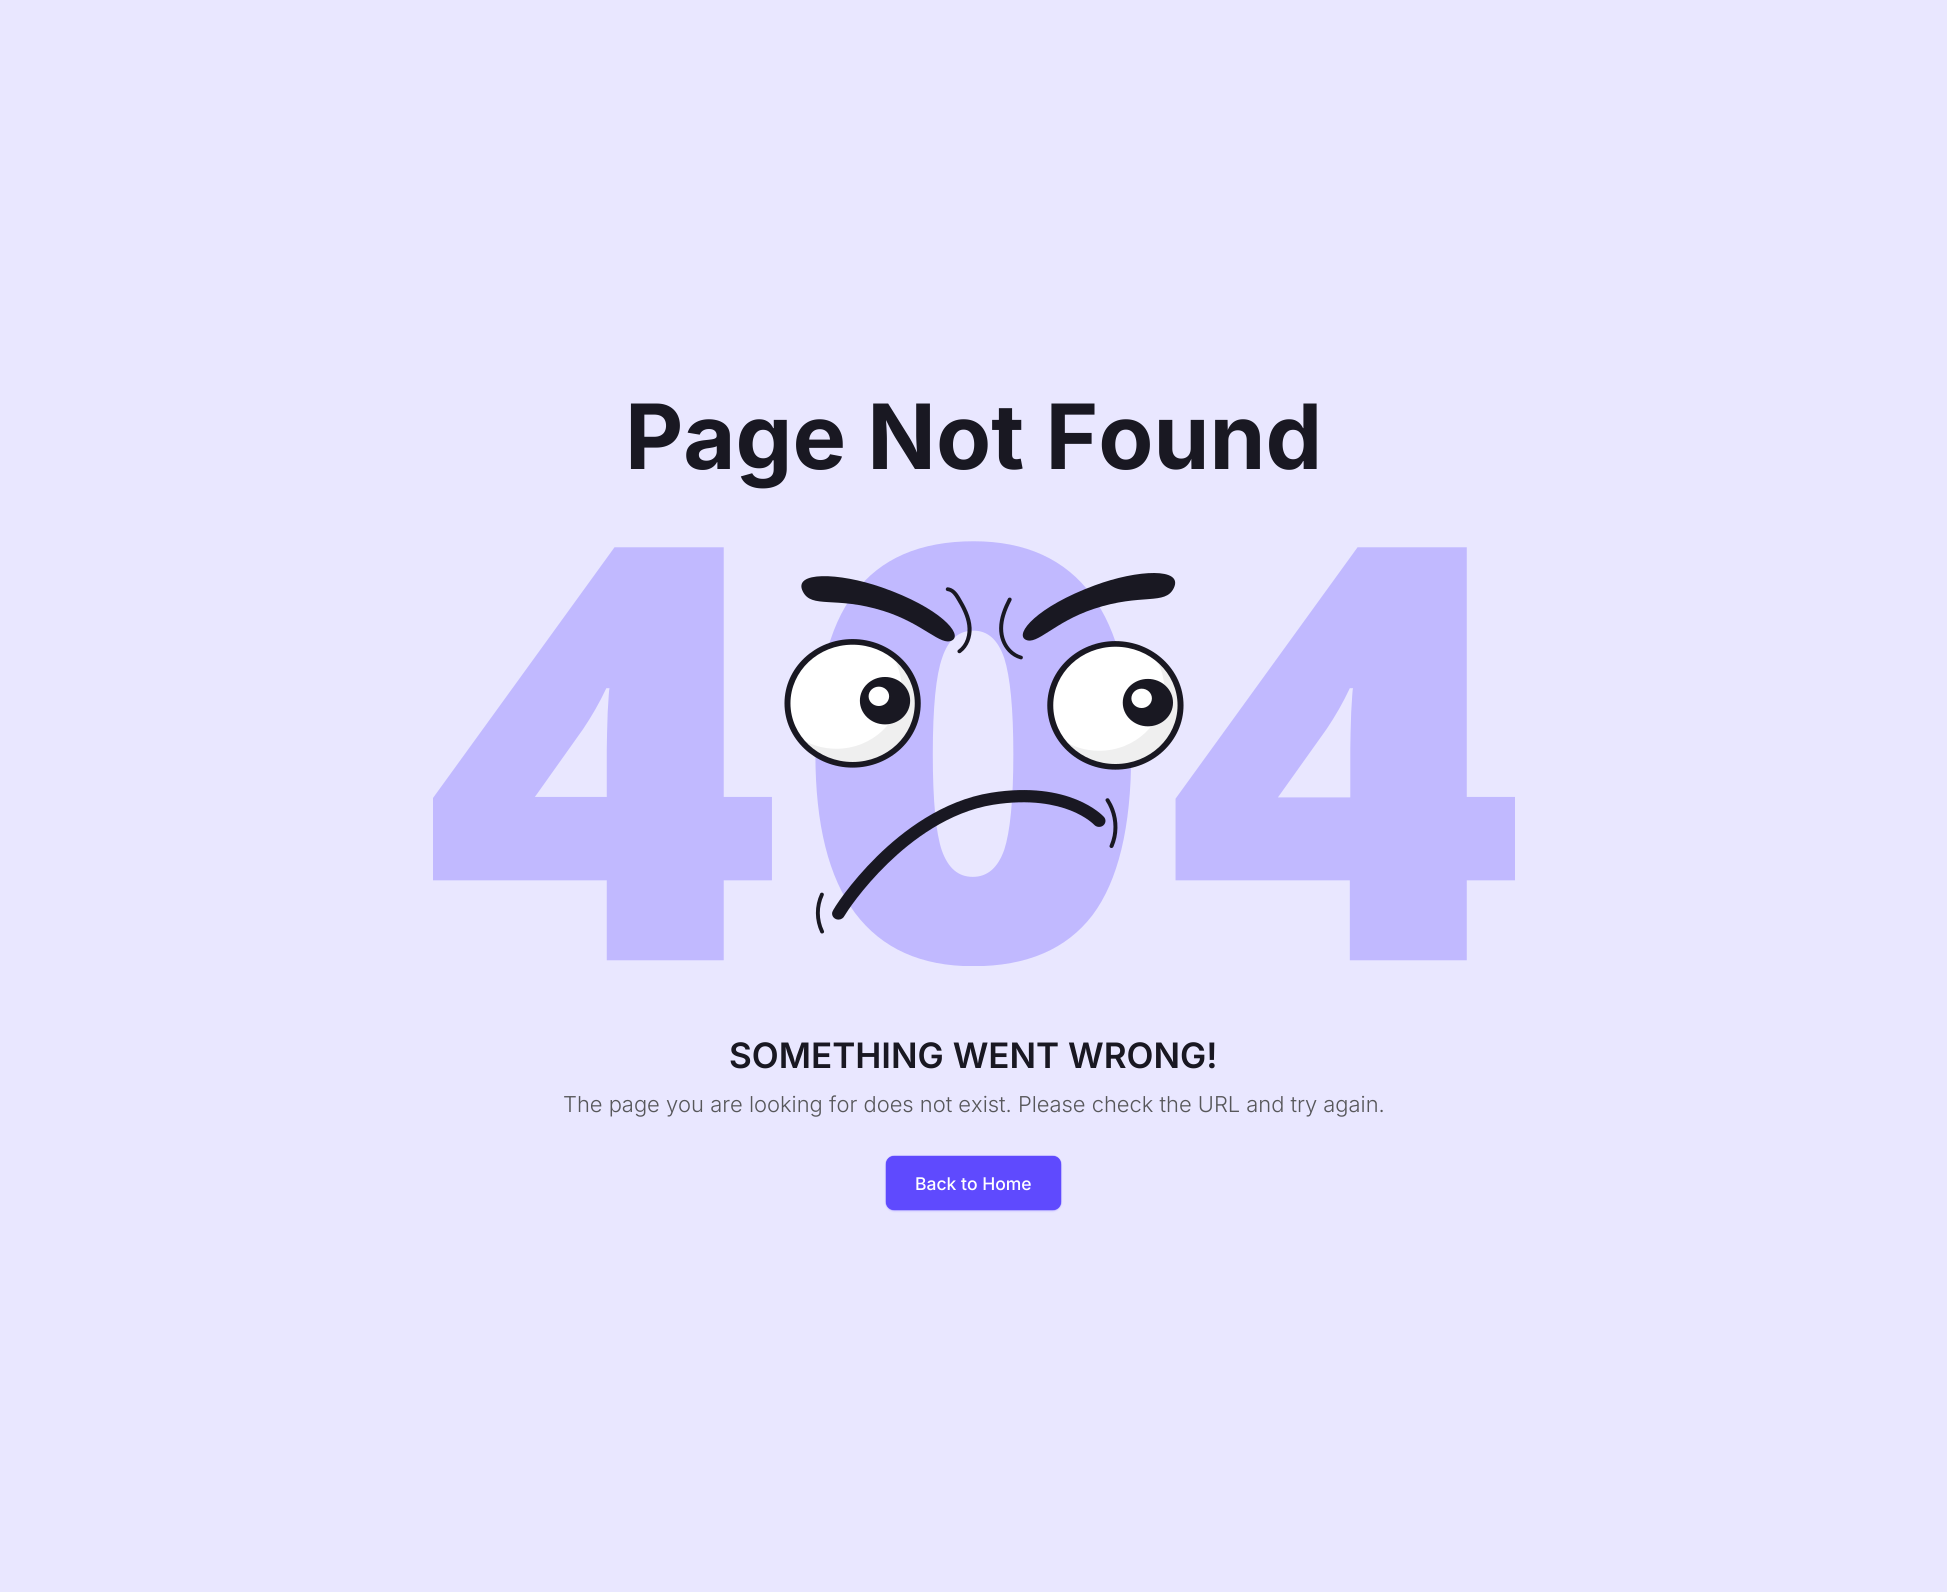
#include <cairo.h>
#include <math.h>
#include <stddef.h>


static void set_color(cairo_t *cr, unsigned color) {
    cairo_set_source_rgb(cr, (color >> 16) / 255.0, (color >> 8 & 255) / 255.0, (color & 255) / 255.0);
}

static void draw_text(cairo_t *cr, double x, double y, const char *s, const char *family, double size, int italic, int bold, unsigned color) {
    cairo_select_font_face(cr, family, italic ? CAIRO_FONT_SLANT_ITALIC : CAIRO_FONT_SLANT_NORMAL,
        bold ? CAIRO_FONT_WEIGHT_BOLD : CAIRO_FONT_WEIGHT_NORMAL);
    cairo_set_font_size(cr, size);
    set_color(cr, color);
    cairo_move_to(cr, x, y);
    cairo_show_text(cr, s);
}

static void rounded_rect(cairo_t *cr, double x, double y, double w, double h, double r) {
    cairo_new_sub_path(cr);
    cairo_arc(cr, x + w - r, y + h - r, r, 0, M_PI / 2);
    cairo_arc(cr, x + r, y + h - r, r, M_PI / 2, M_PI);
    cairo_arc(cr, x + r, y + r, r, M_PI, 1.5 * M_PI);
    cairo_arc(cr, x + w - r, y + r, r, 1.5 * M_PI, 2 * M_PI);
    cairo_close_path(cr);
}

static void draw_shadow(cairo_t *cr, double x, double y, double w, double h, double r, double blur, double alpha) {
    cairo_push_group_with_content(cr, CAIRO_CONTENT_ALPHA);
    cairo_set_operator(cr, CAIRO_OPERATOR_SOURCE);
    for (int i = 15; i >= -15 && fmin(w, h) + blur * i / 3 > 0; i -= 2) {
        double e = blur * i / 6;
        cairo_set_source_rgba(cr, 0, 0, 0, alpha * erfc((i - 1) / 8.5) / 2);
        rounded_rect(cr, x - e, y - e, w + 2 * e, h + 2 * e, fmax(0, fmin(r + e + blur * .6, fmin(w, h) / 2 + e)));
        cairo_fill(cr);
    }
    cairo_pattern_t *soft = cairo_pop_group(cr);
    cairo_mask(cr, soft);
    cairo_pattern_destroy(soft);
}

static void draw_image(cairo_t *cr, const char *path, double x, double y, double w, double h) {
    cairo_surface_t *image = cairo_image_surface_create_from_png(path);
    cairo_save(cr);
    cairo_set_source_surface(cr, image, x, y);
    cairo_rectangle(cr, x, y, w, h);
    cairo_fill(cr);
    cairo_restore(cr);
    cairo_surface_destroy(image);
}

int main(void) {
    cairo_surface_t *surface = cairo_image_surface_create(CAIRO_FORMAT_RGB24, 1947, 1592);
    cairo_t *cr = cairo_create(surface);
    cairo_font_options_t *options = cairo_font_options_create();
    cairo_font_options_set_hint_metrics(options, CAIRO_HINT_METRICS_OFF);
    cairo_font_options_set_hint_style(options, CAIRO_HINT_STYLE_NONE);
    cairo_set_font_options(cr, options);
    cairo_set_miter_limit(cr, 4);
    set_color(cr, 0xE9E7FF);
    cairo_paint(cr);
    draw_text(cr, 625, 469, "Page Not Found", "Inter", 90, 0, 1, 0x191822);
    draw_image(cr, "assets/img1.png", 433, 541, 1082, 425);
    draw_text(cr, 729, 1068, "SOMETHING WENT WRONG!", "Inter SemiBold", 35, 0, 0, 0x191822);
    draw_text(cr, 563, 1112, "The page you are looking for does not exist. Please check the URL and try again.", "Inter Light", 21.9, 0, 0, 0x57575A);
    set_color(cr, 0x5F4AFE);
    draw_shadow(cr, 886, 1156, 175, 54, 8, 0.5, 1);
    draw_shadow(cr, 886, 1158, 175, 53, 8, 1, 0.25);
    set_color(cr, 0x5F4AFE);
    rounded_rect(cr, 886.5, 1156.5, 174, 53, 7.5);
    cairo_fill_preserve(cr);
    cairo_set_line_width(cr, 1);
    cairo_stroke(cr);
    draw_text(cr, 915, 1190, "Back to Home", "Inter Medium", 17.5, 0, 0, 0xFFFFFF);
    cairo_surface_write_to_png(surface, "output.png");
    cairo_font_options_destroy(options);
    cairo_destroy(cr);
    cairo_surface_destroy(surface);
    return 0;
}
